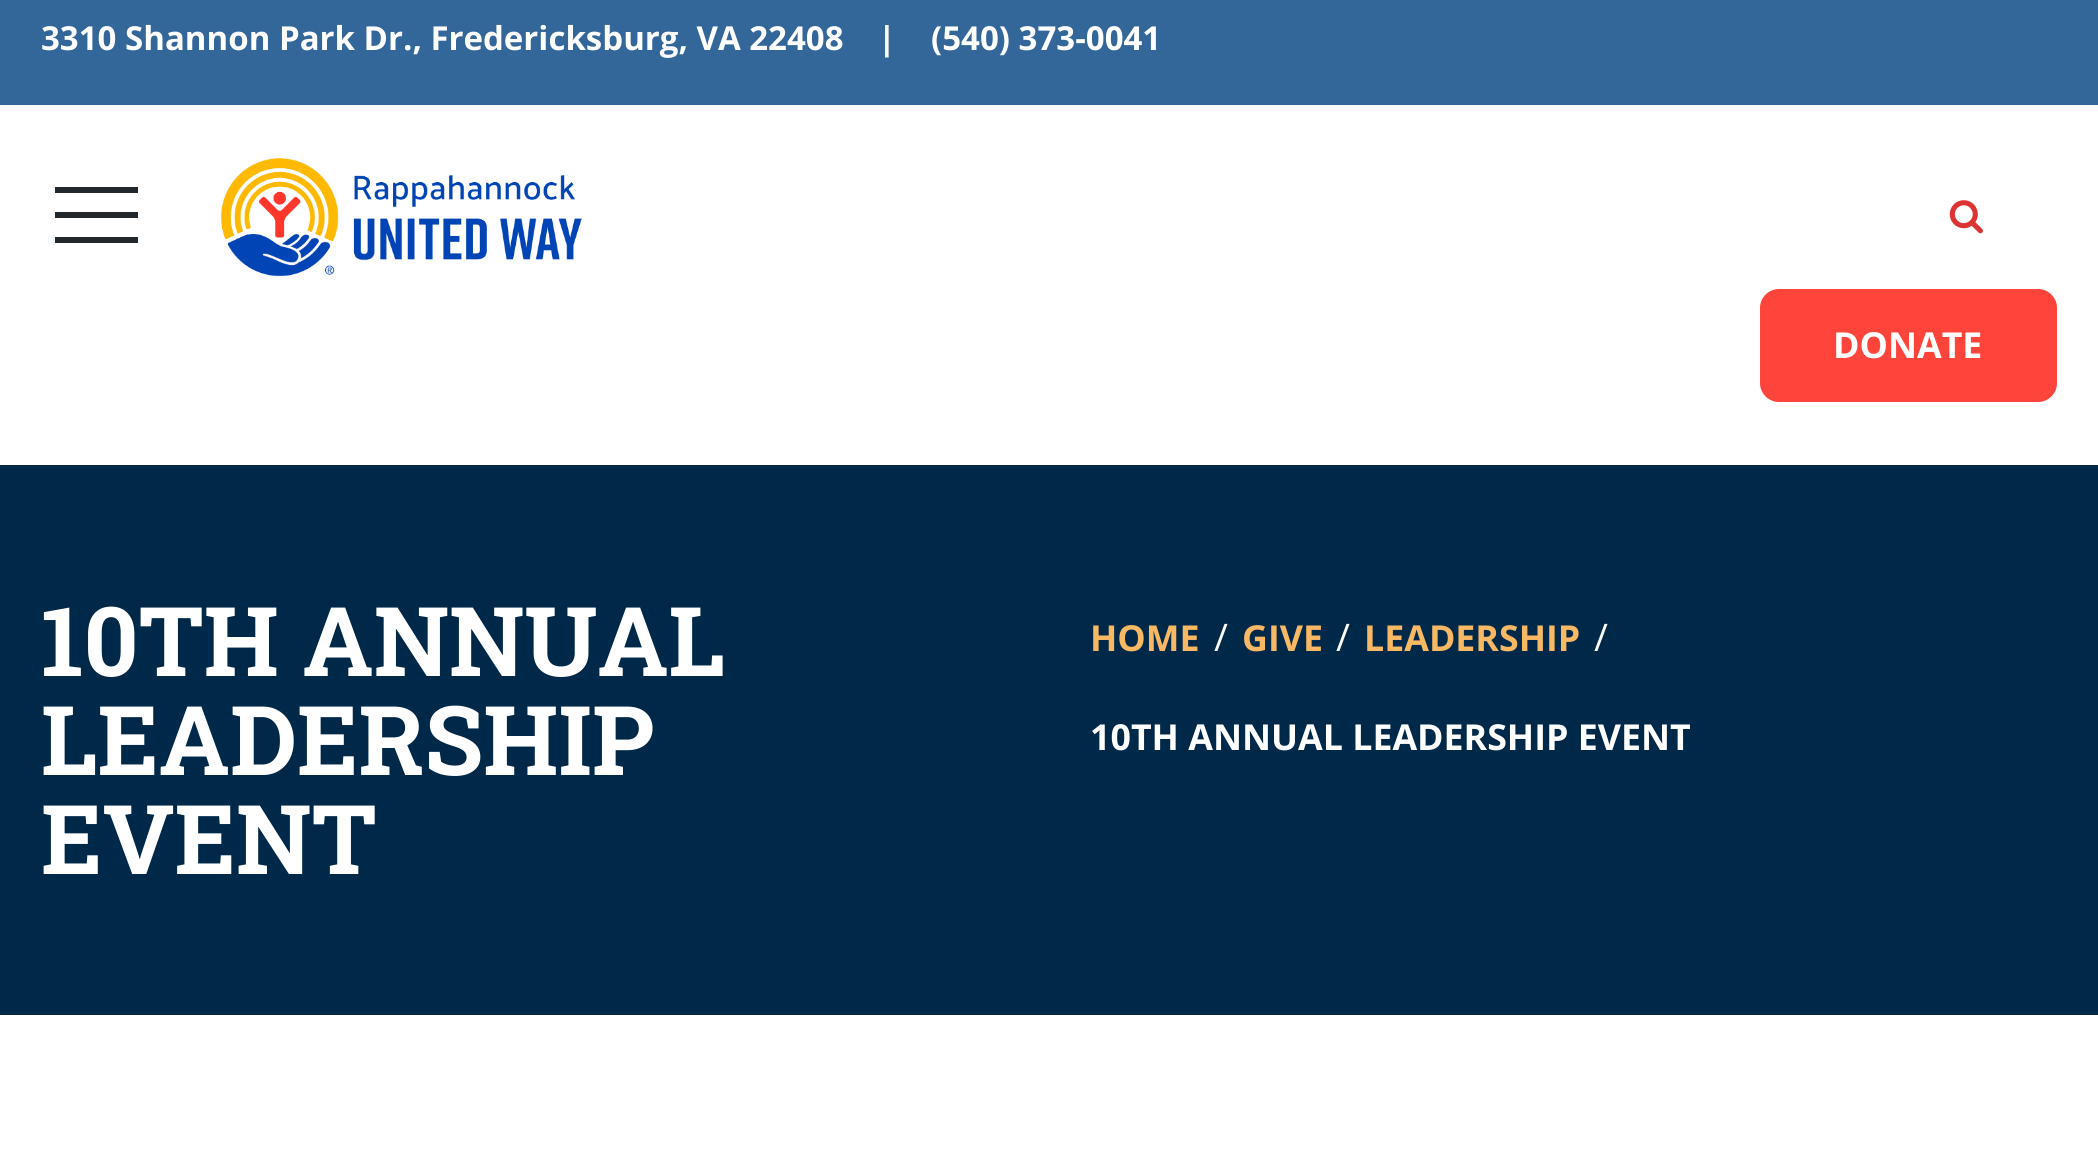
#include <cairo.h>
#include <math.h>
#include <stddef.h>


static void set_color(cairo_t *cr, unsigned color) {
    cairo_set_source_rgb(cr, (color >> 16) / 255.0, (color >> 8 & 255) / 255.0, (color & 255) / 255.0);
}

static void draw_text(cairo_t *cr, double x, double y, const char *s, const char *family, double size, int italic, int bold, unsigned color) {
    cairo_select_font_face(cr, family, italic ? CAIRO_FONT_SLANT_ITALIC : CAIRO_FONT_SLANT_NORMAL,
        bold ? CAIRO_FONT_WEIGHT_BOLD : CAIRO_FONT_WEIGHT_NORMAL);
    cairo_set_font_size(cr, size);
    set_color(cr, color);
    cairo_move_to(cr, x, y);
    cairo_show_text(cr, s);
}

static void fill_rect(cairo_t *cr, double x, double y, double w, double h, unsigned color) {
    set_color(cr, color);
    cairo_rectangle(cr, x, y, w, h);
    cairo_fill(cr);
}

static void rounded_rect(cairo_t *cr, double x, double y, double w, double h, double r) {
    cairo_new_sub_path(cr);
    cairo_arc(cr, x + w - r, y + h - r, r, 0, M_PI / 2);
    cairo_arc(cr, x + r, y + h - r, r, M_PI / 2, M_PI);
    cairo_arc(cr, x + r, y + r, r, M_PI, 1.5 * M_PI);
    cairo_arc(cr, x + w - r, y + r, r, 1.5 * M_PI, 2 * M_PI);
    cairo_close_path(cr);
}

static void draw_image(cairo_t *cr, const char *path, double x, double y, double w, double h) {
    cairo_surface_t *image = cairo_image_surface_create_from_png(path);
    cairo_save(cr);
    cairo_set_source_surface(cr, image, x, y);
    cairo_rectangle(cr, x, y, w, h);
    cairo_fill(cr);
    cairo_restore(cr);
    cairo_surface_destroy(image);
}

int main(void) {
    cairo_surface_t *surface = cairo_image_surface_create(CAIRO_FORMAT_RGB24, 2098, 1160);
    cairo_t *cr = cairo_create(surface);
    cairo_font_options_t *options = cairo_font_options_create();
    cairo_font_options_set_hint_metrics(options, CAIRO_HINT_METRICS_OFF);
    cairo_font_options_set_hint_style(options, CAIRO_HINT_STYLE_NONE);
    cairo_set_font_options(cr, options);
    cairo_set_miter_limit(cr, 4);
    set_color(cr, 0xFFFFFF);
    cairo_paint(cr);
    fill_rect(cr, 0, 0, 2098, 105, 0x336699);
    draw_text(cr, 41, 50, "3310 Shannon Park Dr., Fredericksburg, VA 22408    |", "Open Sans", 33, 0, 1, 0xFFFFFF);
    draw_text(cr, 931, 50, "(540) 373-0041", "Open Sans", 33, 0, 1, 0xFFFFFF);
    fill_rect(cr, 55, 212, 83, 6, 0x23282D);
    fill_rect(cr, 55, 187, 83, 6, 0x23282D);
    fill_rect(cr, 55, 237, 83, 6, 0x23282D);
    draw_image(cr, "assets/img1.png", 220, 158, 362, 119);
    draw_image(cr, "assets/img2.png", 1949, 200, 34, 34);
    set_color(cr, 0xFF443B);
    rounded_rect(cr, 1761.5, 290.5, 294, 110, 17.5);
    cairo_fill_preserve(cr);
    cairo_set_line_width(cr, 3);
    cairo_stroke(cr);
    draw_text(cr, 1833, 358, "DONATE", "Open Sans", 35.75, 0, 1, 0xFFFFFF);
    fill_rect(cr, 0, 465, 2098, 550, 0x002848);
    draw_text(cr, 41, 676, "10TH ANNUAL", "Roboto Slab", 96.25, 0, 1, 0xFFFFFF);
    draw_text(cr, 41, 775, "LEADERSHIP", "Roboto Slab", 96.25, 0, 1, 0xFFFFFF);
    draw_text(cr, 41, 874, "EVENT", "Roboto Slab", 96.25, 0, 1, 0xFFFFFF);
    draw_text(cr, 1090, 651, "HOME", "Open Sans", 35.75, 0, 1, 0xF8B864);
    draw_text(cr, 1214, 651, "/", "Open Sans", 38, 0, 0, 0xFFFFFF);
    draw_text(cr, 1242, 651, "GIVE", "Open Sans", 35.75, 0, 1, 0xF8B864);
    draw_text(cr, 1336, 651, "/", "Open Sans", 38, 0, 0, 0xFFFFFF);
    draw_text(cr, 1364, 651, "LEADERSHIP", "Open Sans", 35.75, 0, 1, 0xF8B864);
    draw_text(cr, 1594, 651, "/", "Open Sans", 38, 0, 0, 0xFFFFFF);
    draw_text(cr, 1090, 750, "10TH ANNUAL LEADERSHIP EVENT", "Open Sans", 35.75, 0, 1, 0xFFFFFF);
    cairo_surface_write_to_png(surface, "output.png");
    cairo_font_options_destroy(options);
    cairo_destroy(cr);
    cairo_surface_destroy(surface);
    return 0;
}
